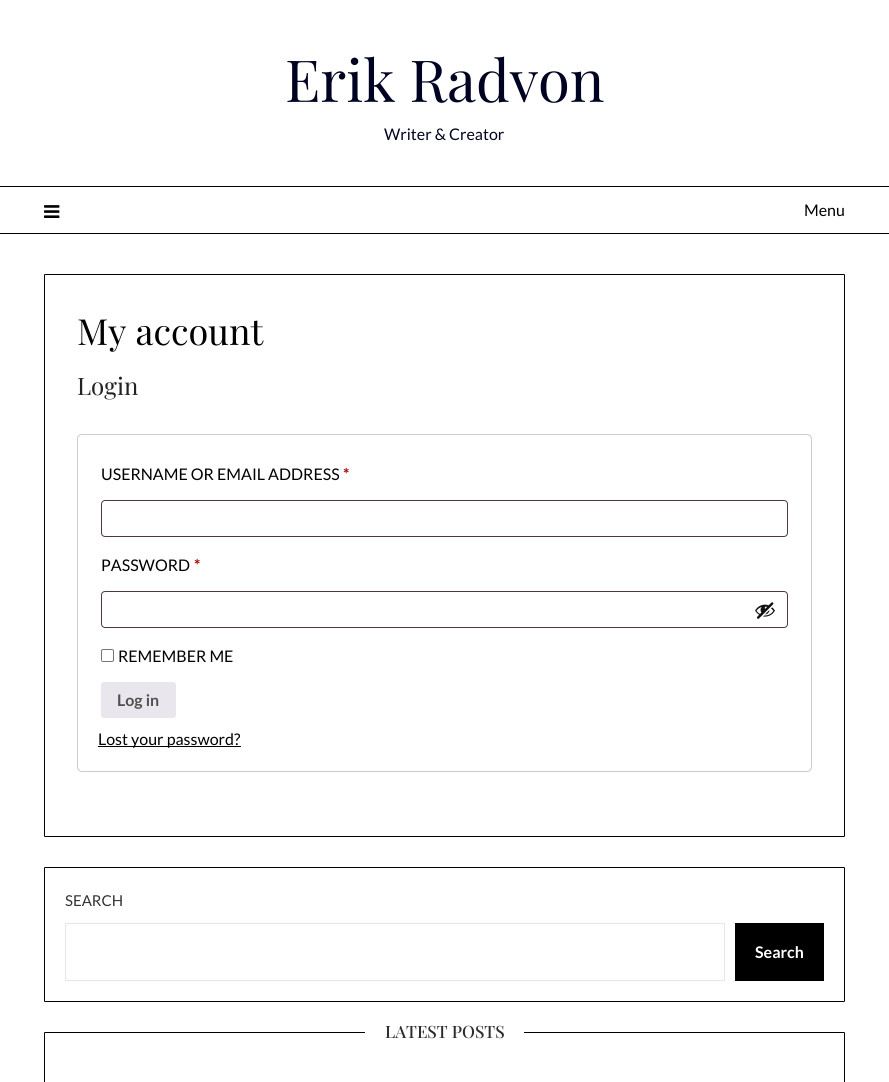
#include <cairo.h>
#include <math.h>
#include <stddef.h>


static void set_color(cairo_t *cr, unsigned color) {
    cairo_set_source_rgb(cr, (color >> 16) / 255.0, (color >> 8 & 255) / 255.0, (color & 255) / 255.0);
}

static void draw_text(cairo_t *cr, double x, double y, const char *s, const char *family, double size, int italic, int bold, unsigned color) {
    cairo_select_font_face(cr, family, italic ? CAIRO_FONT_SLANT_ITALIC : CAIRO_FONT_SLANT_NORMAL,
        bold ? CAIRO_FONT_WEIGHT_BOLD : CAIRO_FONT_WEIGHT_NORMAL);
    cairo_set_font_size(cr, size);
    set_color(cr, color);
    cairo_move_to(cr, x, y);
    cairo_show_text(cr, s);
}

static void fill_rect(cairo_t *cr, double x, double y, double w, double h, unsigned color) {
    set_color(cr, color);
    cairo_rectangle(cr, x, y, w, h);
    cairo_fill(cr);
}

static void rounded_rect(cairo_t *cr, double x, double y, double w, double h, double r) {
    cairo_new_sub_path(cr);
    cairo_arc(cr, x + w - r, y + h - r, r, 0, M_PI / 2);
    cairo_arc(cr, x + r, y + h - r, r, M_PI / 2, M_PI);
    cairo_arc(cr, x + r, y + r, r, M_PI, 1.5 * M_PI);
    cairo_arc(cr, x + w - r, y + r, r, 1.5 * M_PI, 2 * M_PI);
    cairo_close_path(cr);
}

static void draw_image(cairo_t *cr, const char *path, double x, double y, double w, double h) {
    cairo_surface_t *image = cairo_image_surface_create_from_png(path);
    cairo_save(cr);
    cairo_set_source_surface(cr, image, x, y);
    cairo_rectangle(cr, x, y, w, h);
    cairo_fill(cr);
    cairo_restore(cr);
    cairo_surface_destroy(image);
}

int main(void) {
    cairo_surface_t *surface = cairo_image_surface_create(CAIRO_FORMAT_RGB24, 889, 1082);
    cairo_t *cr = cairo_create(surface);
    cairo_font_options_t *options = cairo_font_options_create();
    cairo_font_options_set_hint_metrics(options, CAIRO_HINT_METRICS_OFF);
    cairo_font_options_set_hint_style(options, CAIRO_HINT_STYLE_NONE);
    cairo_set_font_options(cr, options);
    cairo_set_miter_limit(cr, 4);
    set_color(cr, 0xFFFFFF);
    cairo_paint(cr);
    draw_text(cr, 285, 102, "Erik Radvon", "Playfair Display", 58, 0, 0, 0x000222);
    draw_text(cr, 384, 140, "Writer & Creator", "Lato", 16, 0, 0, 0x000222);
    fill_rect(cr, 0, 186, 889, 1, 0x000000);
    fill_rect(cr, 0, 233, 889, 1, 0x000000);
    draw_image(cr, "assets/img1.png", 44, 205, 16, 13);
    draw_text(cr, 804, 216, "Menu", "Lato", 16, 0, 0, 0x000000);
    rounded_rect(cr, 44.5, 274.5, 800, 562, 0.5);
    cairo_set_line_width(cr, 1);
    cairo_stroke(cr);
    draw_text(cr, 77, 345, "My account", "Playfair Display", 36, 0, 0, 0x000000);
    draw_text(cr, 77, 395, "Login", "Playfair Display", 24, 0, 0, 0x222222);
    rounded_rect(cr, 77.5, 434.5, 734, 337, 4.5);
    set_color(cr, 0xCFC8D8);
    cairo_stroke(cr);
    draw_text(cr, 101, 480, "USERNAME OR EMAIL ADDRESS", "Lato", 16, 0, 0, 0x000000);
    draw_text(cr, 343, 480, "*", "Lato", 16, 0, 1, 0xAA0000);
    rounded_rect(cr, 101.5, 500.5, 686, 36, 3.5);
    set_color(cr, 0x4D3939);
    cairo_stroke(cr);
    draw_text(cr, 101, 571, "PASSWORD", "Lato", 16, 0, 0, 0x000000);
    draw_text(cr, 194, 571, "*", "Lato", 16, 0, 1, 0xAA0000);
    rounded_rect(cr, 101.5, 591.5, 686, 36, 3.5);
    set_color(cr, 0x4D3939);
    cairo_stroke(cr);
    draw_image(cr, "assets/img2.png", 755, 602, 20, 17);
    rounded_rect(cr, 101.5, 649.5, 12, 12, 1.5);
    set_color(cr, 0x767676);
    cairo_stroke(cr);
    draw_text(cr, 118, 662, "REMEMBER ME", "Lato", 16, 0, 0, 0x000000);
    set_color(cr, 0xE9E6ED);
    rounded_rect(cr, 101, 682, 75, 36, 3);
    cairo_fill(cr);
    draw_text(cr, 117, 706, "Log in", "Lato", 16, 0, 1, 0x515151);
    fill_rect(cr, 98, 746, 143, 1, 0x000000);
    draw_text(cr, 98, 745, "Lost your password?", "Lato", 16, 0, 0, 0x000000);
    rounded_rect(cr, 44.5, 867.5, 800, 134, 0.5);
    cairo_stroke(cr);
    draw_text(cr, 65, 906, "SEARCH", "Lato", 15, 0, 0, 0x333333);
    cairo_rectangle(cr, 65.5, 923.5, 659, 57);
    set_color(cr, 0xE5E6E9);
    cairo_stroke(cr);
    fill_rect(cr, 735, 923, 89, 58, 0x000000);
    draw_text(cr, 755, 958, "Search", "Lato", 16, 0, 1, 0xFFFFFF);
    rounded_rect(cr, 44.5, 1032.5, 800, 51, 0.5);
    set_color(cr, 0x000000);
    cairo_stroke(cr);
    fill_rect(cr, 365, 1032, 159, 1, 0xFFFFFF);
    draw_text(cr, 385, 1038, "LATEST POSTS", "Playfair Display Medium", 17, 0, 0, 0x2B2B2B);
    cairo_surface_write_to_png(surface, "output.png");
    cairo_font_options_destroy(options);
    cairo_destroy(cr);
    cairo_surface_destroy(surface);
    return 0;
}
